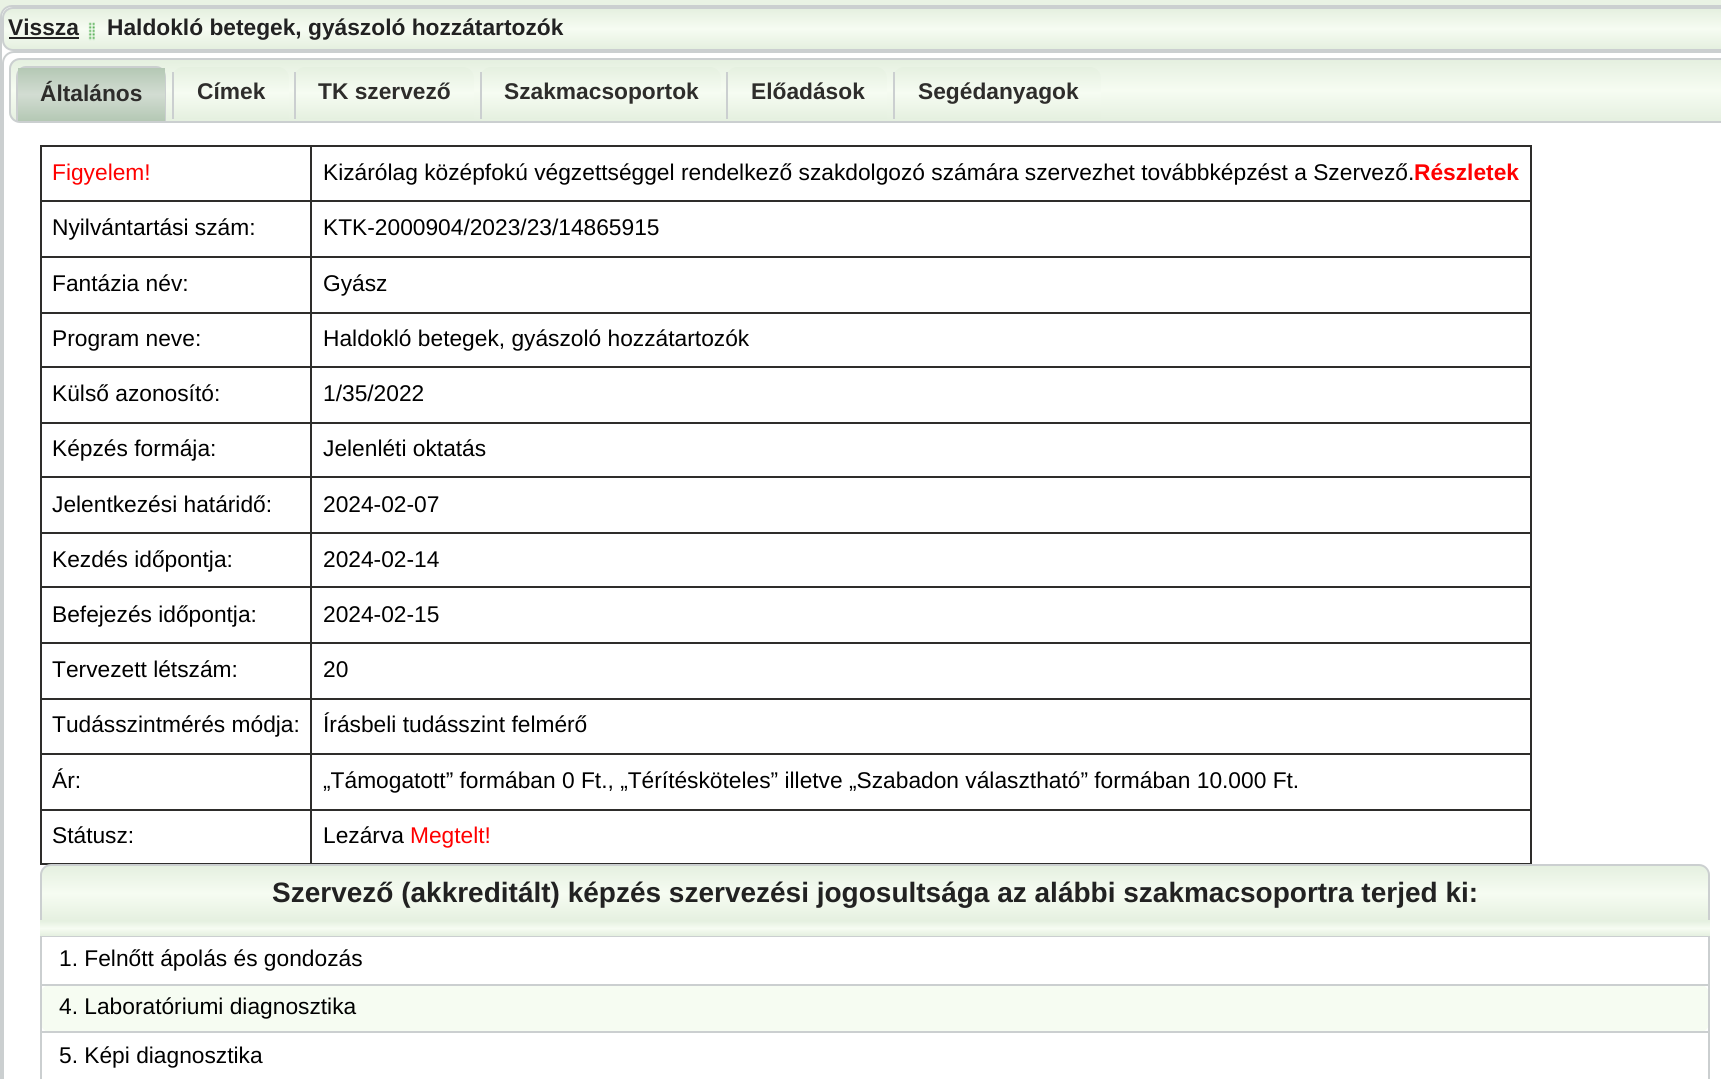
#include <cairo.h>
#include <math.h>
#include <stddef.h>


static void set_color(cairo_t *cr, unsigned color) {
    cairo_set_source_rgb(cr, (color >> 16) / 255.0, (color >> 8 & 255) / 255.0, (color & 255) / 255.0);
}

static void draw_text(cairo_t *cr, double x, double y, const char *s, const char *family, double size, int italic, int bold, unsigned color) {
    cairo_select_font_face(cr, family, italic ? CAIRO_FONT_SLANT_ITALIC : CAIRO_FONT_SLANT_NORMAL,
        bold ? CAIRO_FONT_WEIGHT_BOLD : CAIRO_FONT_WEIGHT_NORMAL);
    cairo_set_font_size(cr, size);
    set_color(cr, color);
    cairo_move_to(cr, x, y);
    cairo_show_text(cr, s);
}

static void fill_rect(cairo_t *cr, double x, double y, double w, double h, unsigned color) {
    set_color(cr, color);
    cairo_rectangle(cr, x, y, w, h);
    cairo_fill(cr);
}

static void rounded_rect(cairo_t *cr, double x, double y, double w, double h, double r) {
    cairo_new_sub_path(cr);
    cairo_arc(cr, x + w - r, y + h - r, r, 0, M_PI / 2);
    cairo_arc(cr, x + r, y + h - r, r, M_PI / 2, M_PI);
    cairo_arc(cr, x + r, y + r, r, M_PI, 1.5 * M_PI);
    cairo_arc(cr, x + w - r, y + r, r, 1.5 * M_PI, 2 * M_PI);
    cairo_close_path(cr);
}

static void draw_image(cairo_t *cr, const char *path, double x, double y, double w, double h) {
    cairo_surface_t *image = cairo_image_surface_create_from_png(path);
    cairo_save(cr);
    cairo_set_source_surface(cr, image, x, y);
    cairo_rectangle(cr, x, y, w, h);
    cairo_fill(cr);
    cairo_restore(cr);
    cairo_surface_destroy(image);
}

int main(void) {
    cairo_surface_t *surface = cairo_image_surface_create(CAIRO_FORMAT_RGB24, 1721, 1079);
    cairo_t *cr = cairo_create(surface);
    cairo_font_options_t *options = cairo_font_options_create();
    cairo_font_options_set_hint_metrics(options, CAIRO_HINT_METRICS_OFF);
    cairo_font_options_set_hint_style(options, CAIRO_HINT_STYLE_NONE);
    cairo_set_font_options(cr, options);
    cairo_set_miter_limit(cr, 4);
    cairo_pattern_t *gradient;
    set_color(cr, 0xE9F2E4);
    cairo_paint(cr);
    set_color(cr, 0xFFFFFF);
    rounded_rect(cr, 1, 6, 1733, 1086, 11);
    cairo_fill_preserve(cr);
    set_color(cr, 0xCBCFD0);
    cairo_stroke(cr);
    cairo_save(cr);
    rounded_rect(cr, 2, 7, 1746, 44, 11);
    cairo_clip(cr);
    gradient = cairo_pattern_create_linear(875, 49, 875, 9);
    cairo_pattern_add_color_stop_rgba(gradient, 0, 0.898, 0.941, 0.878, 1);
    cairo_pattern_add_color_stop_rgba(gradient, 0.5, 0.965, 0.988, 0.949, 1);
    cairo_pattern_add_color_stop_rgba(gradient, 1, 0.898, 0.941, 0.878, 1);
    cairo_set_source(cr, gradient);
    cairo_pattern_destroy(gradient);
    cairo_rectangle(cr, 2, 9, 1719, 40);
    cairo_fill(cr);
    cairo_restore(cr);
    rounded_rect(cr, 3, 8, 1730, 42, 10);
    cairo_stroke(cr);
    draw_text(cr, 8, 35, "Vissza", "Liberation Sans", 22.75, 0, 1, 0x222222);
    fill_rect(cr, 9, 37, 70, 2, 0x222222);
    draw_image(cr, "assets/img1.png", 88, 22, 7, 19);
    draw_text(cr, 107, 35, "Haldokló betegek, gyászoló hozzátartozók", "Liberation Sans", 22.75, 0, 1, 0x222222);
    rounded_rect(cr, 3, 52, 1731, 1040, 11);
    set_color(cr, 0xCBCFD0);
    cairo_stroke(cr);
    cairo_save(cr);
    rounded_rect(cr, 9, 58, 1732, 65, 11);
    cairo_clip(cr);
    gradient = cairo_pattern_create_linear(875, 121, 875, 60);
    cairo_pattern_add_color_stop_rgba(gradient, 0, 0.898, 0.941, 0.878, 1);
    cairo_pattern_add_color_stop_rgba(gradient, 0.5, 0.965, 0.988, 0.949, 1);
    cairo_pattern_add_color_stop_rgba(gradient, 1, 0.898, 0.941, 0.878, 1);
    cairo_set_source(cr, gradient);
    cairo_pattern_destroy(gradient);
    cairo_rectangle(cr, 9, 60, 1712, 61);
    cairo_fill(cr);
    cairo_restore(cr);
    rounded_rect(cr, 10, 59, 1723, 63, 10);
    cairo_stroke(cr);
    cairo_set_fill_rule(cr, CAIRO_FILL_RULE_EVEN_ODD);
    cairo_new_path(cr);
    cairo_move_to(cr, 26, 66);
    cairo_line_to(cr, 156, 66);
    cairo_curve_to(cr, 162, 66, 166, 71, 166, 77);
    cairo_line_to(cr, 166, 121);
    cairo_line_to(cr, 16, 121);
    cairo_line_to(cr, 16, 77);
    cairo_curve_to(cr, 16, 71, 20, 66, 26, 66);
    cairo_close_path(cr);
    cairo_move_to(cr, 26, 68);
    cairo_line_to(cr, 156, 68);
    cairo_curve_to(cr, 161, 68, 164, 72, 164, 77);
    cairo_line_to(cr, 164, 121);
    cairo_line_to(cr, 18, 121);
    cairo_line_to(cr, 18, 77);
    cairo_curve_to(cr, 18, 72, 21, 68, 26, 68);
    cairo_close_path(cr);
    cairo_fill(cr);
    gradient = cairo_pattern_create_linear(91, 121, 91, 68);
    cairo_pattern_add_color_stop_rgba(gradient, 0, 0.706, 0.784, 0.706, 1);
    cairo_pattern_add_color_stop_rgba(gradient, 0.5, 0.824, 0.863, 0.824, 1);
    cairo_pattern_add_color_stop_rgba(gradient, 1, 0.706, 0.784, 0.706, 1);
    cairo_set_source(cr, gradient);
    cairo_pattern_destroy(gradient);
    cairo_rectangle(cr, 18, 68, 147, 53);
    cairo_fill(cr);
    draw_text(cr, 40, 101, "Általános", "Liberation Sans", 22.75, 0, 1, 0x2E2D2B);
    gradient = cairo_pattern_create_linear(231, 119, 231, 67);
    cairo_pattern_add_color_stop_rgba(gradient, 0, 0.898, 0.941, 0.878, 1);
    cairo_pattern_add_color_stop_rgba(gradient, 0.5, 0.965, 0.988, 0.949, 1);
    cairo_pattern_add_color_stop_rgba(gradient, 1, 0.898, 0.941, 0.878, 1);
    cairo_set_source(cr, gradient);
    cairo_pattern_destroy(gradient);
    cairo_new_path(cr);
    cairo_move_to(cr, 183, 67);
    cairo_line_to(cr, 278, 67);
    cairo_curve_to(cr, 284, 67, 289, 72, 289, 78);
    cairo_line_to(cr, 289, 119);
    cairo_line_to(cr, 172, 119);
    cairo_line_to(cr, 172, 78);
    cairo_curve_to(cr, 172, 72, 177, 67, 183, 67);
    cairo_close_path(cr);
    cairo_fill(cr);
    fill_rect(cr, 172, 72, 2, 47, 0xCBCFD0);
    draw_text(cr, 197, 99, "Címek", "Liberation Sans", 22.75, 0, 1, 0x2E2D2B);
    gradient = cairo_pattern_create_linear(385, 119, 385, 67);
    cairo_pattern_add_color_stop_rgba(gradient, 0, 0.898, 0.941, 0.878, 1);
    cairo_pattern_add_color_stop_rgba(gradient, 0.5, 0.965, 0.988, 0.949, 1);
    cairo_pattern_add_color_stop_rgba(gradient, 1, 0.898, 0.941, 0.878, 1);
    cairo_set_source(cr, gradient);
    cairo_pattern_destroy(gradient);
    cairo_new_path(cr);
    cairo_move_to(cr, 305, 67);
    cairo_line_to(cr, 463, 67);
    cairo_curve_to(cr, 469, 67, 474, 72, 474, 78);
    cairo_line_to(cr, 474, 119);
    cairo_line_to(cr, 294, 119);
    cairo_line_to(cr, 294, 78);
    cairo_curve_to(cr, 294, 72, 299, 67, 305, 67);
    cairo_close_path(cr);
    cairo_fill(cr);
    fill_rect(cr, 294, 72, 2, 47, 0xCBCFD0);
    draw_text(cr, 318, 99, "TK szervező", "Liberation Sans", 22.75, 0, 1, 0x2E2D2B);
    gradient = cairo_pattern_create_linear(601, 119, 601, 67);
    cairo_pattern_add_color_stop_rgba(gradient, 0, 0.898, 0.941, 0.878, 1);
    cairo_pattern_add_color_stop_rgba(gradient, 0.5, 0.965, 0.988, 0.949, 1);
    cairo_pattern_add_color_stop_rgba(gradient, 1, 0.898, 0.941, 0.878, 1);
    cairo_set_source(cr, gradient);
    cairo_pattern_destroy(gradient);
    cairo_new_path(cr);
    cairo_move_to(cr, 491, 67);
    cairo_line_to(cr, 710, 67);
    cairo_curve_to(cr, 716, 67, 721, 72, 721, 78);
    cairo_line_to(cr, 721, 119);
    cairo_line_to(cr, 480, 119);
    cairo_line_to(cr, 480, 78);
    cairo_curve_to(cr, 480, 72, 485, 67, 491, 67);
    cairo_close_path(cr);
    cairo_fill(cr);
    fill_rect(cr, 480, 72, 2, 47, 0xCBCFD0);
    draw_text(cr, 504, 99, "Szakmacsoportok", "Liberation Sans", 22.75, 0, 1, 0x2E2D2B);
    gradient = cairo_pattern_create_linear(808, 119, 808, 67);
    cairo_pattern_add_color_stop_rgba(gradient, 0, 0.898, 0.941, 0.878, 1);
    cairo_pattern_add_color_stop_rgba(gradient, 0.5, 0.965, 0.988, 0.949, 1);
    cairo_pattern_add_color_stop_rgba(gradient, 1, 0.898, 0.941, 0.878, 1);
    cairo_set_source(cr, gradient);
    cairo_pattern_destroy(gradient);
    cairo_new_path(cr);
    cairo_move_to(cr, 737, 67);
    cairo_line_to(cr, 876, 67);
    cairo_curve_to(cr, 882, 67, 887, 72, 887, 78);
    cairo_line_to(cr, 887, 119);
    cairo_line_to(cr, 726, 119);
    cairo_line_to(cr, 726, 78);
    cairo_curve_to(cr, 726, 72, 731, 67, 737, 67);
    cairo_close_path(cr);
    cairo_fill(cr);
    fill_rect(cr, 726, 72, 2, 47, 0xCBCFD0);
    draw_text(cr, 751, 99, "Előadások", "Liberation Sans", 22.75, 0, 1, 0x2E2D2B);
    gradient = cairo_pattern_create_linear(998, 119, 998, 67);
    cairo_pattern_add_color_stop_rgba(gradient, 0, 0.898, 0.941, 0.878, 1);
    cairo_pattern_add_color_stop_rgba(gradient, 0.5, 0.965, 0.988, 0.949, 1);
    cairo_pattern_add_color_stop_rgba(gradient, 1, 0.898, 0.941, 0.878, 1);
    cairo_set_source(cr, gradient);
    cairo_pattern_destroy(gradient);
    cairo_new_path(cr);
    cairo_move_to(cr, 904, 67);
    cairo_line_to(cr, 1090, 67);
    cairo_curve_to(cr, 1096, 67, 1101, 72, 1101, 78);
    cairo_line_to(cr, 1101, 119);
    cairo_line_to(cr, 893, 119);
    cairo_line_to(cr, 893, 78);
    cairo_curve_to(cr, 893, 72, 898, 67, 904, 67);
    cairo_close_path(cr);
    cairo_fill(cr);
    fill_rect(cr, 893, 72, 2, 47, 0xCBCFD0);
    draw_text(cr, 918, 99, "Segédanyagok", "Liberation Sans", 22.75, 0, 1, 0x2E2D2B);
    fill_rect(cr, 310, 145, 1221, 2, 0x2E2D2B);
    fill_rect(cr, 310, 200, 1221, 2, 0x2E2D2B);
    fill_rect(cr, 310, 256, 1221, 2, 0x2E2D2B);
    fill_rect(cr, 310, 312, 1221, 2, 0x2E2D2B);
    fill_rect(cr, 310, 366, 1221, 2, 0x2E2D2B);
    fill_rect(cr, 310, 422, 1221, 2, 0x2E2D2B);
    fill_rect(cr, 310, 476, 1221, 2, 0x2E2D2B);
    fill_rect(cr, 310, 532, 1221, 2, 0x2E2D2B);
    fill_rect(cr, 310, 586, 1221, 2, 0x2E2D2B);
    fill_rect(cr, 310, 642, 1221, 2, 0x2E2D2B);
    fill_rect(cr, 310, 698, 1221, 2, 0x2E2D2B);
    fill_rect(cr, 310, 753, 1221, 2, 0x2E2D2B);
    fill_rect(cr, 310, 809, 1221, 2, 0x2E2D2B);
    fill_rect(cr, 1530, 809, 2, 56, 0x2E2D2B);
    fill_rect(cr, 310, 863, 1221, 1, 0x2E2D2B);
    fill_rect(cr, 310, 809, 2, 56, 0x2E2D2B);
    fill_rect(cr, 40, 809, 272, 2, 0x2E2D2B);
    fill_rect(cr, 310, 753, 2, 57, 0x2E2D2B);
    fill_rect(cr, 40, 753, 272, 2, 0x2E2D2B);
    fill_rect(cr, 310, 698, 2, 56, 0x2E2D2B);
    fill_rect(cr, 40, 698, 272, 2, 0x2E2D2B);
    fill_rect(cr, 310, 642, 2, 58, 0x2E2D2B);
    fill_rect(cr, 40, 642, 272, 2, 0x2E2D2B);
    fill_rect(cr, 310, 586, 2, 58, 0x2E2D2B);
    fill_rect(cr, 40, 586, 272, 2, 0x2E2D2B);
    fill_rect(cr, 310, 532, 2, 56, 0x2E2D2B);
    fill_rect(cr, 40, 532, 272, 2, 0x2E2D2B);
    fill_rect(cr, 310, 476, 2, 58, 0x2E2D2B);
    fill_rect(cr, 40, 476, 272, 2, 0x2E2D2B);
    fill_rect(cr, 310, 422, 2, 56, 0x2E2D2B);
    fill_rect(cr, 40, 422, 272, 2, 0x2E2D2B);
    fill_rect(cr, 310, 366, 2, 58, 0x2E2D2B);
    fill_rect(cr, 40, 366, 272, 2, 0x2E2D2B);
    fill_rect(cr, 310, 312, 2, 56, 0x2E2D2B);
    fill_rect(cr, 40, 312, 272, 2, 0x2E2D2B);
    fill_rect(cr, 310, 256, 2, 57, 0x2E2D2B);
    fill_rect(cr, 40, 256, 272, 2, 0x2E2D2B);
    fill_rect(cr, 310, 200, 2, 57, 0x2E2D2B);
    fill_rect(cr, 40, 200, 272, 2, 0x2E2D2B);
    fill_rect(cr, 310, 145, 2, 56, 0x2E2D2B);
    fill_rect(cr, 40, 145, 272, 2, 0x2E2D2B);
    fill_rect(cr, 40, 863, 272, 2, 0x2E2D2B);
    fill_rect(cr, 40, 809, 2, 56, 0x2E2D2B);
    fill_rect(cr, 40, 753, 2, 57, 0x2E2D2B);
    fill_rect(cr, 40, 698, 2, 56, 0x2E2D2B);
    fill_rect(cr, 40, 642, 2, 58, 0x2E2D2B);
    fill_rect(cr, 40, 586, 2, 58, 0x2E2D2B);
    fill_rect(cr, 40, 532, 2, 56, 0x2E2D2B);
    fill_rect(cr, 40, 476, 2, 58, 0x2E2D2B);
    fill_rect(cr, 40, 422, 2, 56, 0x2E2D2B);
    fill_rect(cr, 40, 366, 2, 58, 0x2E2D2B);
    fill_rect(cr, 40, 312, 2, 56, 0x2E2D2B);
    fill_rect(cr, 40, 256, 2, 57, 0x2E2D2B);
    fill_rect(cr, 40, 200, 2, 57, 0x2E2D2B);
    fill_rect(cr, 40, 145, 2, 56, 0x2E2D2B);
    draw_text(cr, 52, 180, "Figyelem!", "Liberation Sans", 22.75, 0, 0, 0xFF0000);
    fill_rect(cr, 1530, 753, 2, 57, 0x2E2D2B);
    fill_rect(cr, 1530, 698, 2, 56, 0x2E2D2B);
    fill_rect(cr, 1530, 642, 2, 58, 0x2E2D2B);
    fill_rect(cr, 1530, 586, 2, 58, 0x2E2D2B);
    fill_rect(cr, 1530, 532, 2, 56, 0x2E2D2B);
    fill_rect(cr, 1530, 476, 2, 58, 0x2E2D2B);
    fill_rect(cr, 1530, 422, 2, 56, 0x2E2D2B);
    fill_rect(cr, 1530, 366, 2, 58, 0x2E2D2B);
    fill_rect(cr, 1530, 312, 2, 56, 0x2E2D2B);
    fill_rect(cr, 1530, 256, 2, 57, 0x2E2D2B);
    fill_rect(cr, 1530, 200, 2, 57, 0x2E2D2B);
    fill_rect(cr, 1530, 145, 2, 56, 0x2E2D2B);
    draw_text(cr, 323, 180, "Kizárólag középfokú végzettséggel rendelkező szakdolgozó számára szervezhet továbbképzést a Szervező.", "Liberation Sans", 22.75, 0, 0, 0x000000);
    draw_text(cr, 1414, 180, "Részletek", "Liberation Sans", 22.75, 0, 1, 0xFF0000);
    draw_text(cr, 52, 235, "Nyilvántartási szám:", "Liberation Sans", 22.75, 0, 0, 0x000000);
    draw_text(cr, 323, 235, "KTK-2000904/2023/23/14865915", "Liberation Sans", 22.75, 0, 0, 0x000000);
    draw_text(cr, 52, 291, "Fantázia név:", "Liberation Sans", 22.75, 0, 0, 0x000000);
    draw_text(cr, 323, 291, "Gyász", "Liberation Sans", 22.75, 0, 0, 0x000000);
    draw_text(cr, 52, 346, "Program neve:", "Liberation Sans", 22.75, 0, 0, 0x000000);
    draw_text(cr, 323, 346, "Haldokló betegek, gyászoló hozzátartozók", "Liberation Sans", 22.75, 0, 0, 0x000000);
    draw_text(cr, 52, 401, "Külső azonosító:", "Liberation Sans", 22.75, 0, 0, 0x000000);
    draw_text(cr, 323, 401, "1/35/2022", "Liberation Sans", 22.75, 0, 0, 0x000000);
    draw_text(cr, 52, 456, "Képzés formája:", "Liberation Sans", 22.75, 0, 0, 0x000000);
    draw_text(cr, 323, 456, "Jelenléti oktatás", "Liberation Sans", 22.75, 0, 0, 0x000000);
    draw_text(cr, 52, 512, "Jelentkezési határidő:", "Liberation Sans", 22.75, 0, 0, 0x000000);
    draw_text(cr, 323, 512, "2024-02-07", "Liberation Sans", 22.75, 0, 0, 0x000000);
    draw_text(cr, 52, 567, "Kezdés időpontja:", "Liberation Sans", 22.75, 0, 0, 0x000000);
    draw_text(cr, 323, 567, "2024-02-14", "Liberation Sans", 22.75, 0, 0, 0x000000);
    draw_text(cr, 52, 622, "Befejezés időpontja:", "Liberation Sans", 22.75, 0, 0, 0x000000);
    draw_text(cr, 323, 622, "2024-02-15", "Liberation Sans", 22.75, 0, 0, 0x000000);
    draw_text(cr, 52, 677, "Tervezett létszám:", "Liberation Sans", 22.75, 0, 0, 0x000000);
    draw_text(cr, 323, 677, "20", "Liberation Sans", 22.75, 0, 0, 0x000000);
    draw_text(cr, 52, 732, "Tudásszintmérés módja:", "Liberation Sans", 22.75, 0, 0, 0x000000);
    draw_text(cr, 323, 732, "Írásbeli tudásszint felmérő", "Liberation Sans", 22.75, 0, 0, 0x000000);
    draw_text(cr, 52, 788, "Ár:", "Liberation Sans", 22.75, 0, 0, 0x000000);
    draw_text(cr, 323, 788, "„Támogatott” formában 0 Ft., „Térítésköteles” illetve „Szabadon választható” formában 10.000 Ft.", "Liberation Sans", 22.75, 0, 0, 0x000000);
    draw_text(cr, 52, 843, "Státusz:", "Liberation Sans", 22.75, 0, 0, 0x000000);
    draw_text(cr, 323, 843, "Lezárva", "Liberation Sans", 22.75, 0, 0, 0x000000);
    draw_text(cr, 410, 843, "Megtelt!", "Liberation Sans", 22.75, 0, 0, 0xFF0000);
    cairo_save(cr);
    cairo_set_fill_rule(cr, CAIRO_FILL_RULE_WINDING);
    cairo_new_path(cr);
    cairo_move_to(cr, 51, 865);
    cairo_line_to(cr, 1699, 865);
    cairo_curve_to(cr, 1705, 865, 1710, 870, 1710, 876);
    cairo_line_to(cr, 1710, 921);
    cairo_line_to(cr, 40, 921);
    cairo_line_to(cr, 40, 876);
    cairo_curve_to(cr, 40, 870, 45, 865, 51, 865);
    cairo_close_path(cr);
    cairo_clip(cr);
    gradient = cairo_pattern_create_linear(875, 921, 875, 866);
    cairo_pattern_add_color_stop_rgba(gradient, 0, 0.898, 0.941, 0.878, 1);
    cairo_pattern_add_color_stop_rgba(gradient, 0.5, 0.965, 0.988, 0.949, 1);
    cairo_pattern_add_color_stop_rgba(gradient, 1, 0.898, 0.941, 0.878, 1);
    cairo_set_source(cr, gradient);
    cairo_pattern_destroy(gradient);
    cairo_rectangle(cr, 40, 866, 1670, 55);
    cairo_fill(cr);
    cairo_restore(cr);
    set_color(cr, 0xCBCFD0);
    cairo_new_path(cr);
    cairo_move_to(cr, 51, 864);
    cairo_line_to(cr, 1699, 864);
    cairo_curve_to(cr, 1705, 864, 1710, 869, 1710, 875);
    cairo_line_to(cr, 1710, 920);
    cairo_line_to(cr, 40, 920);
    cairo_line_to(cr, 40, 875);
    cairo_curve_to(cr, 40, 869, 45, 864, 51, 864);
    cairo_close_path(cr);
    cairo_move_to(cr, 51, 866);
    cairo_line_to(cr, 1699, 866);
    cairo_curve_to(cr, 1704, 866, 1708, 870, 1708, 875);
    cairo_line_to(cr, 1708, 920);
    cairo_line_to(cr, 42, 920);
    cairo_line_to(cr, 42, 875);
    cairo_curve_to(cr, 42, 870, 46, 866, 51, 866);
    cairo_close_path(cr);
    cairo_fill(cr);
    draw_text(cr, 272, 902, "Szervező (akkreditált) képzés szervezési jogosultsága az alábbi szakmacsoportra terjed ki:", "Liberation Sans", 28, 0, 1, 0x222222);
    fill_rect(cr, 40, 936, 1670, 1, 0xCBCFD0);
    set_color(cr, 0xF6FCF2);
    rounded_rect(cr, 40, 984, 1670, 49, 12);
    cairo_fill(cr);
    fill_rect(cr, 1708, 935, 2, 144, 0xCBCFD0);
    fill_rect(cr, 40, 935, 2, 144, 0xCBCFD0);
    gradient = cairo_pattern_create_linear(876, 936, 876, 921);
    cairo_pattern_add_color_stop_rgba(gradient, 0, 0.898, 0.941, 0.878, 1);
    cairo_pattern_add_color_stop_rgba(gradient, 0.5, 0.965, 0.988, 0.949, 1);
    cairo_pattern_add_color_stop_rgba(gradient, 1, 0.898, 0.941, 0.878, 1);
    cairo_set_source(cr, gradient);
    cairo_pattern_destroy(gradient);
    cairo_rectangle(cr, 40, 921, 1670, 15);
    cairo_fill(cr);
    draw_text(cr, 59, 966, "1. Felnőtt ápolás és gondozás", "Liberation Sans", 22.75, 0, 0, 0x000000);
    fill_rect(cr, 40, 984, 1670, 2, 0xCBCFD0);
    draw_text(cr, 59, 1014, "4. Laboratóriumi diagnosztika", "Liberation Sans", 22.75, 0, 0, 0x000000);
    fill_rect(cr, 40, 1031, 1670, 2, 0xCBCFD0);
    draw_text(cr, 59, 1063, "5. Képi diagnosztika", "Liberation Sans", 22.75, 0, 0, 0x000000);
    cairo_surface_write_to_png(surface, "output.png");
    cairo_font_options_destroy(options);
    cairo_destroy(cr);
    cairo_surface_destroy(surface);
    return 0;
}
